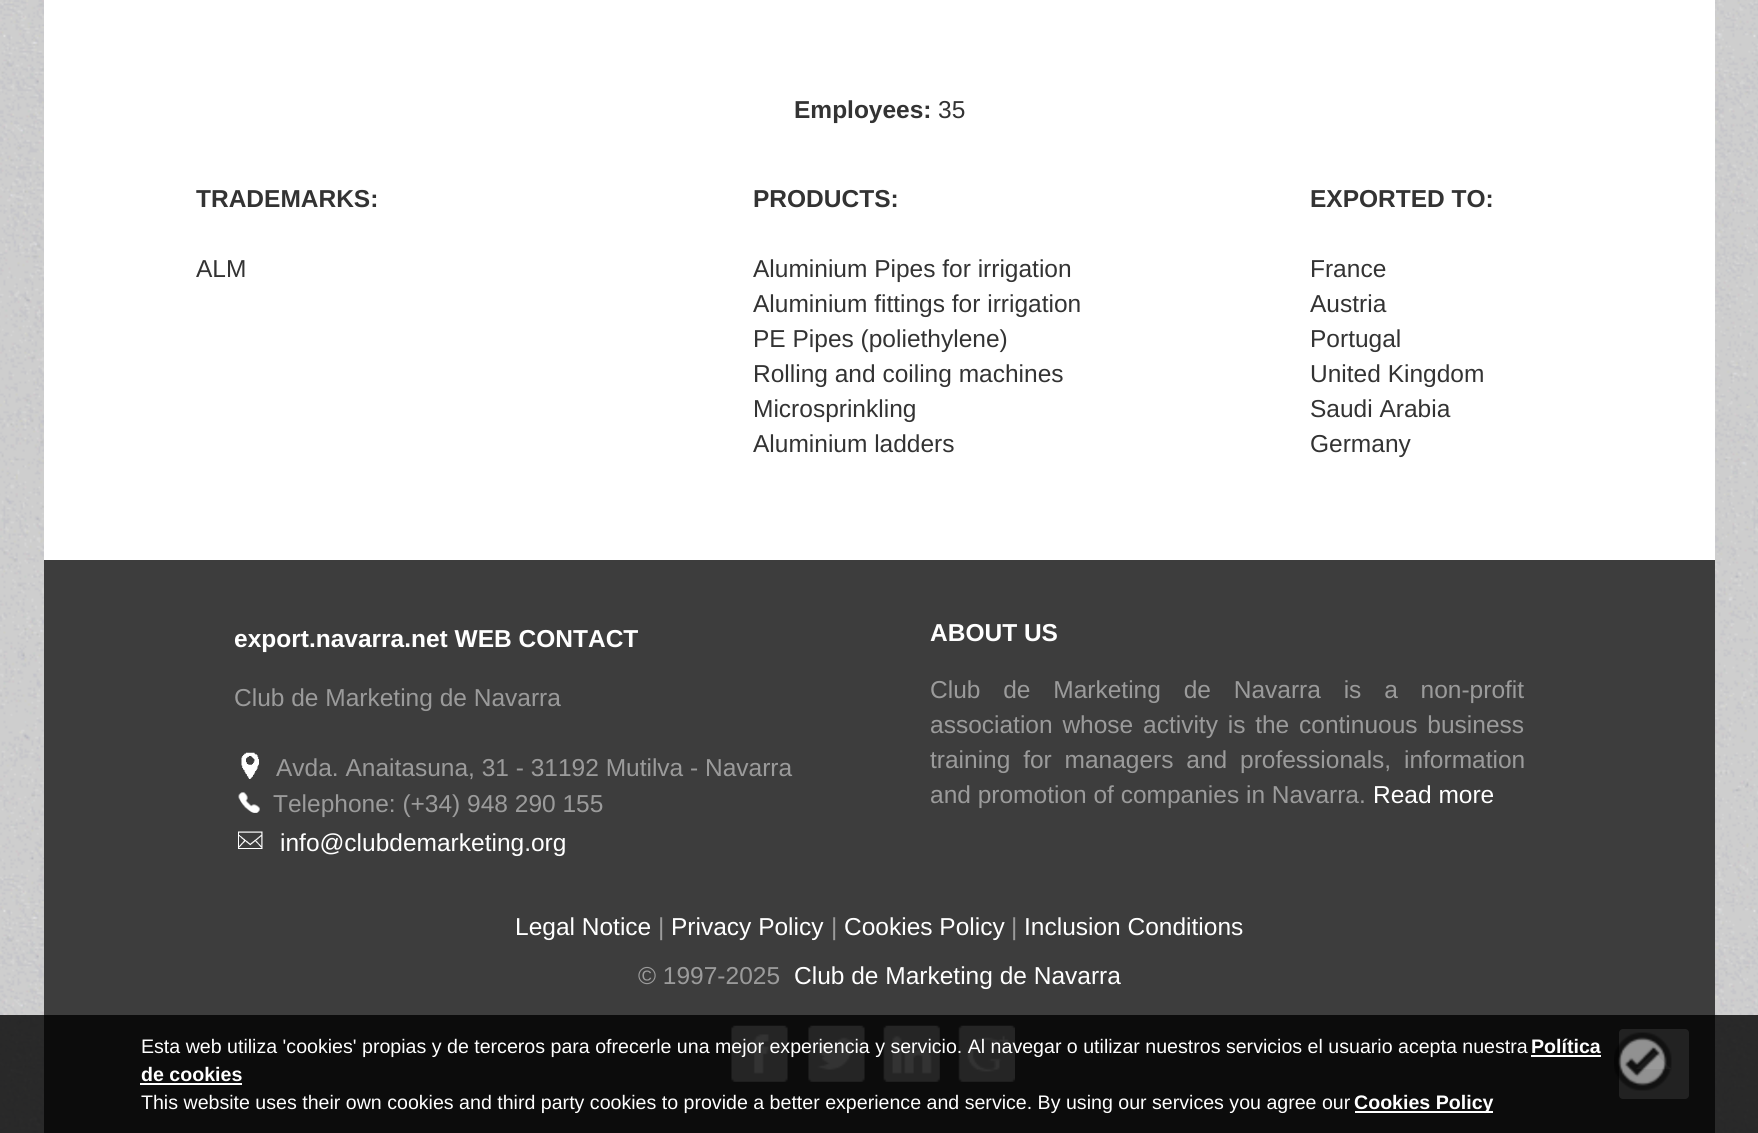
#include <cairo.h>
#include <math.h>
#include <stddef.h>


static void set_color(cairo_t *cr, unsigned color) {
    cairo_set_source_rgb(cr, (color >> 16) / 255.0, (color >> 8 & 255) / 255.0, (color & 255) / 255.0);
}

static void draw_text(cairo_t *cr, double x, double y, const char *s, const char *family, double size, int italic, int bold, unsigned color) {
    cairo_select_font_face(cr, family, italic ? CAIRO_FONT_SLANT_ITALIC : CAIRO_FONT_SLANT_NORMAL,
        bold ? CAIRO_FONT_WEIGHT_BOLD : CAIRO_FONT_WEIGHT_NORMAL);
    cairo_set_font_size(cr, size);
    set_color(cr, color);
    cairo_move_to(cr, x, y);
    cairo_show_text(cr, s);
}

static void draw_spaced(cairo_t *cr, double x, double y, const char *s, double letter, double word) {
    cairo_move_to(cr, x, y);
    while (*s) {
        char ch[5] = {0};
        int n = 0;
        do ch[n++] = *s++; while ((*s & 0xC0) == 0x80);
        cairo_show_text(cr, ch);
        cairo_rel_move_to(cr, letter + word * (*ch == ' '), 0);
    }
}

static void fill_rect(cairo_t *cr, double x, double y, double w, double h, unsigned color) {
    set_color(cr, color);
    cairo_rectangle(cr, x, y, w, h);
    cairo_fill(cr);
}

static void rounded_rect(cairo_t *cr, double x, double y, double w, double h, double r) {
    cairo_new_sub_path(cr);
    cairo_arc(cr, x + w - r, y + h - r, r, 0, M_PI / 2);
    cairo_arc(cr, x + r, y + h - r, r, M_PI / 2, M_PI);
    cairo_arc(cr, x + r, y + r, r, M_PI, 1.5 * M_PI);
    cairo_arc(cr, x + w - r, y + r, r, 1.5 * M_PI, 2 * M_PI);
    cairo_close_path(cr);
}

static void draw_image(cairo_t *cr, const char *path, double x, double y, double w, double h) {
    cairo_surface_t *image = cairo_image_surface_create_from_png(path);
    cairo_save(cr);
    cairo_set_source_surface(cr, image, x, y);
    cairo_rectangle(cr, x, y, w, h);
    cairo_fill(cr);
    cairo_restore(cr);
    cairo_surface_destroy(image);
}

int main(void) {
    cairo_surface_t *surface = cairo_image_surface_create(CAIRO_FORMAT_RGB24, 1758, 1133);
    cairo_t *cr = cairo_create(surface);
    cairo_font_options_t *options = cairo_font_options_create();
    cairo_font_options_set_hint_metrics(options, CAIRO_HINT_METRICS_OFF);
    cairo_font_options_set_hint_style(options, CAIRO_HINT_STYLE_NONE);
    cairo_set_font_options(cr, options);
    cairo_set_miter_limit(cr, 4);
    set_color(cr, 0xFFFFFF);
    cairo_paint(cr);
    draw_image(cr, "assets/img1.png", 0, 0, 1758, 1133);
    fill_rect(cr, 44, 0, 1671, 560, 0xFFFFFF);
    draw_text(cr, 794, 118, "Employees:", "Liberation Sans", 24.5, 0, 1, 0x333333);
    draw_text(cr, 938, 118, "35", "Liberation Sans", 24.5, 0, 0, 0x333333);
    draw_text(cr, 196, 207, "TRADEMARKS:", "Liberation Sans", 24.5, 0, 1, 0x333333);
    draw_text(cr, 196, 277, "ALM", "Liberation Sans", 24.5, 0, 0, 0x333333);
    draw_text(cr, 753, 207, "PRODUCTS:", "Liberation Sans", 24.5, 0, 1, 0x333333);
    draw_text(cr, 753, 277, "Aluminium Pipes for irrigation", "Liberation Sans", 24.5, 0, 0, 0x333333);
    draw_text(cr, 753, 312, "Aluminium fittings for irrigation", "Liberation Sans", 24.5, 0, 0, 0x333333);
    draw_text(cr, 753, 347, "PE Pipes (poliethylene)", "Liberation Sans", 24.5, 0, 0, 0x333333);
    draw_text(cr, 753, 382, "Rolling and coiling machines", "Liberation Sans", 24.5, 0, 0, 0x333333);
    draw_text(cr, 753, 417, "Microsprinkling", "Liberation Sans", 24.5, 0, 0, 0x333333);
    draw_text(cr, 753, 452, "Aluminium ladders", "Liberation Sans", 24.5, 0, 0, 0x333333);
    draw_text(cr, 1310, 207, "EXPORTED TO:", "Liberation Sans", 24.5, 0, 1, 0x333333);
    draw_text(cr, 1310, 277, "France", "Liberation Sans", 24.5, 0, 0, 0x333333);
    draw_text(cr, 1310, 312, "Austria", "Liberation Sans", 24.5, 0, 0, 0x333333);
    draw_text(cr, 1310, 347, "Portugal", "Liberation Sans", 24.5, 0, 0, 0x333333);
    draw_text(cr, 1310, 382, "United Kingdom", "Liberation Sans", 24.5, 0, 0, 0x333333);
    draw_text(cr, 1310, 417, "Saudi Arabia", "Liberation Sans", 24.5, 0, 0, 0x333333);
    draw_text(cr, 1310, 452, "Germany", "Liberation Sans", 24.5, 0, 0, 0x333333);
    fill_rect(cr, 44, 560, 1671, 573, 0x3D3D3D);
    draw_text(cr, 234, 647, "export.navarra.net WEB CONTACT", "Liberation Sans", 24.5, 0, 1, 0xFFFFFF);
    draw_text(cr, 234, 706, "Club de Marketing de Navarra", "Liberation Sans", 24.5, 0, 0, 0x9B9B9B);
    draw_image(cr, "assets/img2.png", 241, 752, 18, 27);
    draw_text(cr, 276, 776, "Avda. Anaitasuna, 31 - 31192 Mutilva - Navarra", "Liberation Sans", 24.5, 0, 0, 0x9B9B9B);
    draw_image(cr, "assets/img3.png", 238, 792, 22, 21);
    draw_text(cr, 273, 812, "Telephone: (+34) 948 290 155", "Liberation Sans", 24.5, 0, 0, 0x9B9B9B);
    draw_image(cr, "assets/img4.png", 238, 831, 25, 18);
    draw_text(cr, 280, 851, "info@clubdemarketing.org", "Liberation Sans", 24.5, 0, 0, 0xFFFFFF);
    draw_text(cr, 930, 641, "ABOUT US", "Liberation Sans", 24.5, 0, 1, 0xFFFFFF);
    cairo_select_font_face(cr, "Liberation Sans", CAIRO_FONT_SLANT_NORMAL, CAIRO_FONT_WEIGHT_NORMAL);
    set_color(cr, 0x9B9B9B);
    draw_spaced(cr, 930, 698, "Club de Marketing de Navarra is a non-profit", 0, 16);
    draw_spaced(cr, 930, 733, "association whose activity is the continuous business", 0, 3);
    draw_spaced(cr, 930, 768, "training for managers and professionals, information", 0, 6);
    draw_text(cr, 930, 803, "and promotion of companies in Navarra.", "Liberation Sans", 24.5, 0, 0, 0x9B9B9B);
    draw_text(cr, 1373, 803, "Read more", "Liberation Sans", 24.5, 0, 0, 0xFFFFFF);
    draw_text(cr, 515, 935, "Legal Notice", "Liberation Sans", 24.5, 0, 0, 0xFFFFFF);
    draw_text(cr, 658, 935, "|", "Liberation Sans", 24.5, 0, 0, 0x9B9B9B);
    draw_text(cr, 671, 935, "Privacy Policy", "Liberation Sans", 24.5, 0, 0, 0xFFFFFF);
    draw_text(cr, 831, 935, "|", "Liberation Sans", 24.5, 0, 0, 0x9B9B9B);
    draw_text(cr, 844, 935, "Cookies Policy", "Liberation Sans", 24.5, 0, 0, 0xFFFFFF);
    draw_text(cr, 1011, 935, "|", "Liberation Sans", 24.5, 0, 0, 0x9B9B9B);
    draw_text(cr, 1024, 935, "Inclusion Conditions", "Liberation Sans", 24.5, 0, 0, 0xFFFFFF);
    draw_text(cr, 638, 984, "© 1997-2025", "Liberation Sans", 24.5, 0, 0, 0x9B9B9B);
    draw_text(cr, 794, 984, "Club de Marketing de Navarra", "Liberation Sans", 24.5, 0, 0, 0xFFFFFF);
    draw_image(cr, "assets/img5.png", 731, 1025, 57, 57);
    draw_image(cr, "assets/img6.png", 808, 1025, 57, 57);
    draw_image(cr, "assets/img7.png", 883, 1025, 57, 57);
    draw_image(cr, "assets/img8.png", 958, 1025, 57, 57);
    set_color(cr, 0xAAAAAA);
    rounded_rect(cr, 1619, 1029, 70, 70, 4);
    cairo_fill(cr);
    set_color(cr, 0xFFFFFF);
    cairo_new_path(cr);
    cairo_move_to(cr, 1671, 1069);
    cairo_line_to(cr, 1636, 1069);
    cairo_line_to(cr, 1654, 1052);
    cairo_close_path(cr);
    cairo_fill(cr);
    cairo_set_source_rgba(cr, 0, 0, 0, 0.8);
    cairo_rectangle(cr, 0, 1015, 1758, 118);
    cairo_fill(cr);
    draw_text(cr, 141, 1053, "Esta web utiliza 'cookies' propias y de terceros para ofrecerle una mejor experiencia y servicio. Al navegar o utilizar nuestros servicios el usuario acepta nuestra", "Liberation Sans", 19.6, 0, 0, 0xFFFFFF);
    draw_text(cr, 1531, 1053, "Política", "Liberation Sans", 19.6, 0, 1, 0xFFFFFF);
    fill_rect(cr, 1531, 1055, 70, 2, 0xFFFFFF);
    draw_image(cr, "assets/img9.png", 1614, 1032, 58, 59);
    draw_text(cr, 141, 1081, "de cookies", "Liberation Sans", 19.6, 0, 1, 0xFFFFFF);
    fill_rect(cr, 140, 1083, 102, 2, 0xFFFFFF);
    draw_text(cr, 141, 1109, "This website uses their own cookies and third party cookies to provide a better experience and service. By using our services you agree our", "Liberation Sans", 19.6, 0, 0, 0xFFFFFF);
    fill_rect(cr, 1355, 1111, 138, 2, 0xFFFFFF);
    draw_text(cr, 1354, 1109, "Cookies Policy", "Liberation Sans", 19.6, 0, 1, 0xFFFFFF);
    cairo_surface_write_to_png(surface, "output.png");
    cairo_font_options_destroy(options);
    cairo_destroy(cr);
    cairo_surface_destroy(surface);
    return 0;
}
